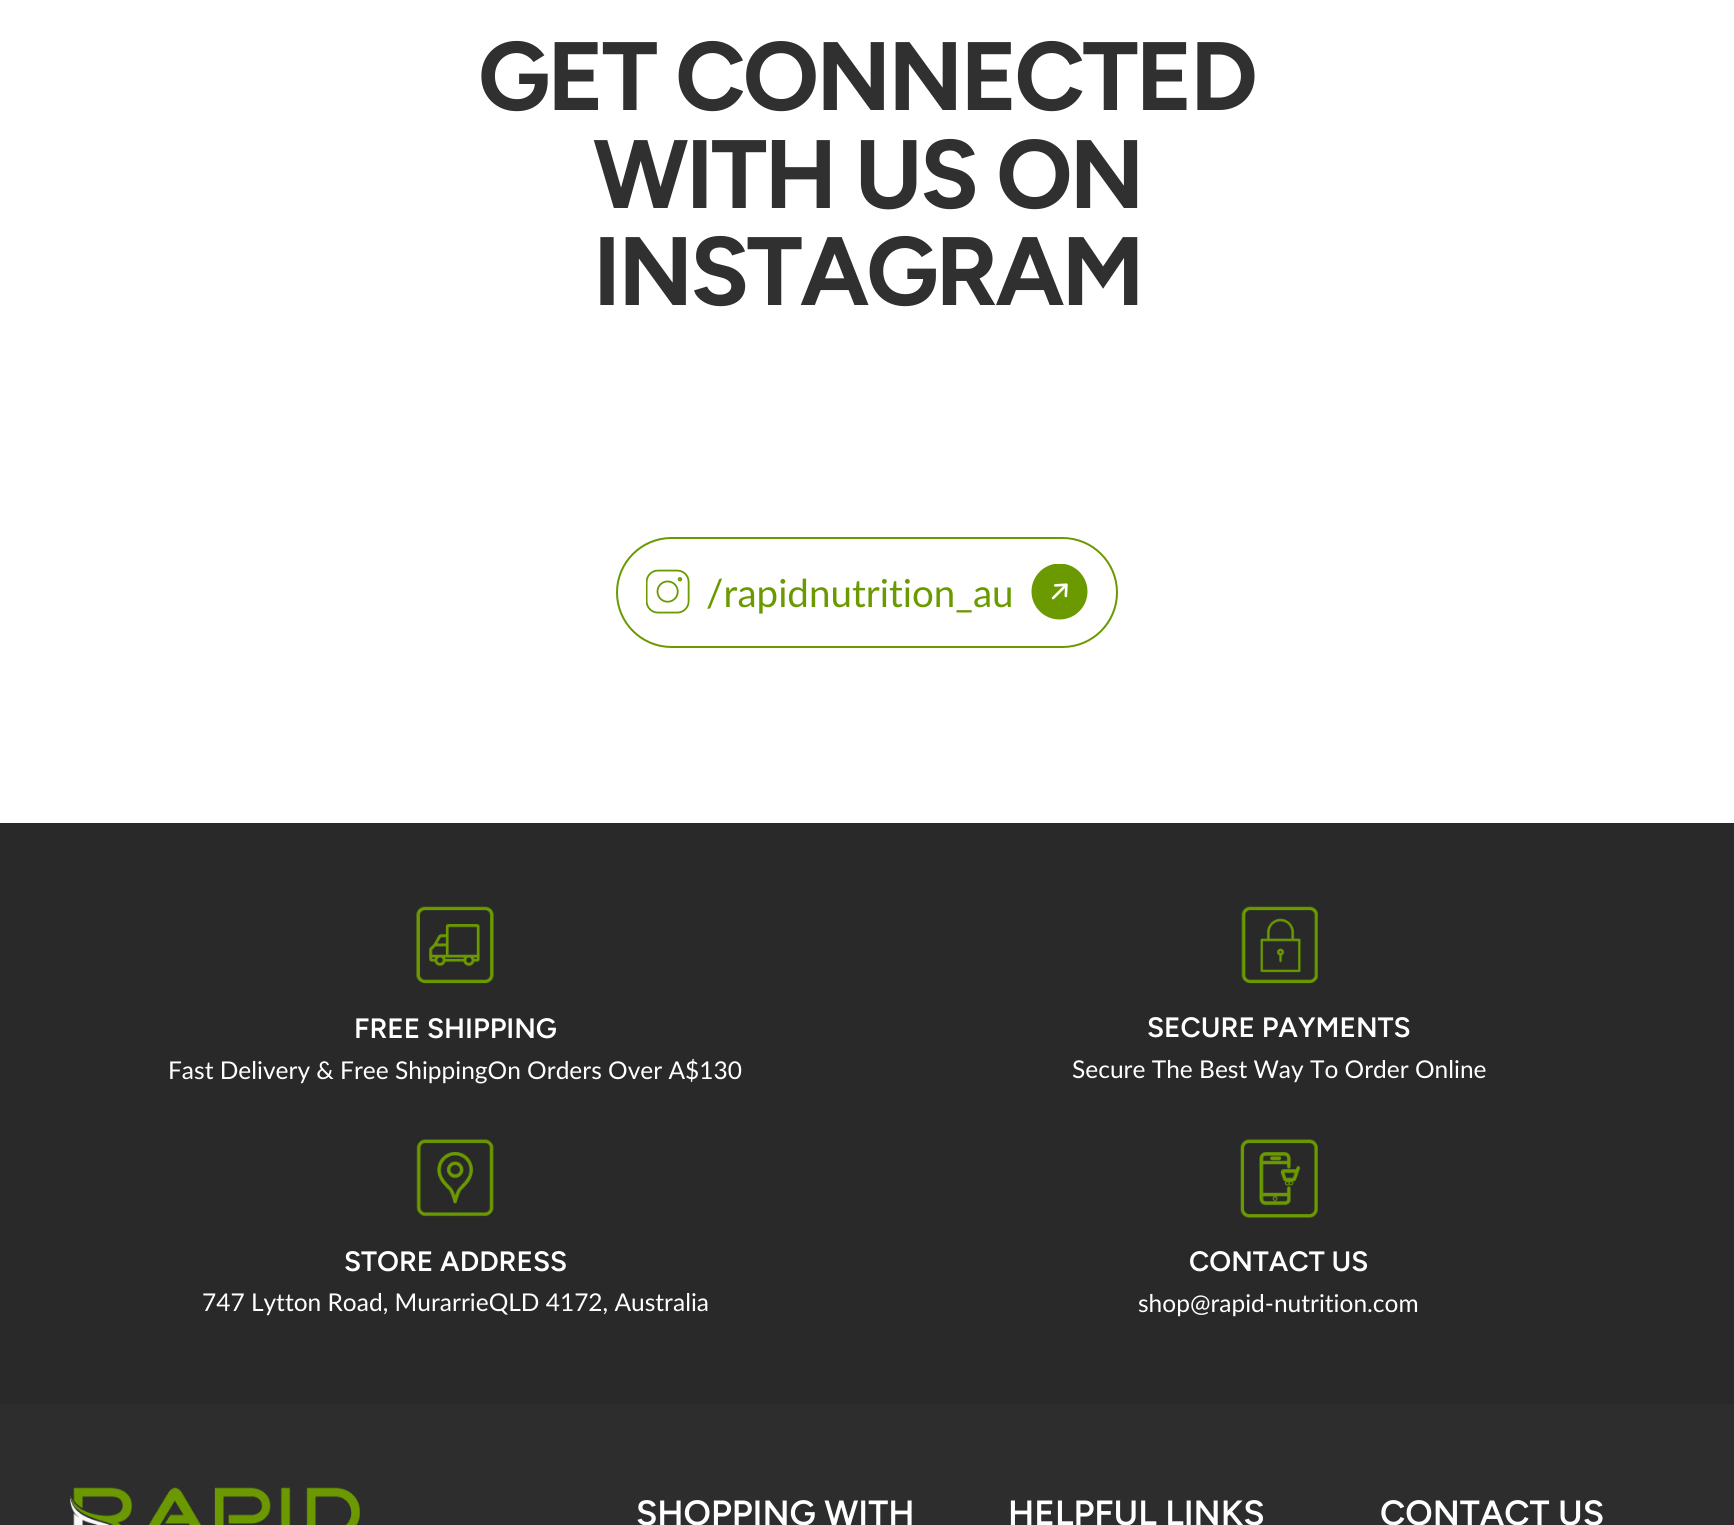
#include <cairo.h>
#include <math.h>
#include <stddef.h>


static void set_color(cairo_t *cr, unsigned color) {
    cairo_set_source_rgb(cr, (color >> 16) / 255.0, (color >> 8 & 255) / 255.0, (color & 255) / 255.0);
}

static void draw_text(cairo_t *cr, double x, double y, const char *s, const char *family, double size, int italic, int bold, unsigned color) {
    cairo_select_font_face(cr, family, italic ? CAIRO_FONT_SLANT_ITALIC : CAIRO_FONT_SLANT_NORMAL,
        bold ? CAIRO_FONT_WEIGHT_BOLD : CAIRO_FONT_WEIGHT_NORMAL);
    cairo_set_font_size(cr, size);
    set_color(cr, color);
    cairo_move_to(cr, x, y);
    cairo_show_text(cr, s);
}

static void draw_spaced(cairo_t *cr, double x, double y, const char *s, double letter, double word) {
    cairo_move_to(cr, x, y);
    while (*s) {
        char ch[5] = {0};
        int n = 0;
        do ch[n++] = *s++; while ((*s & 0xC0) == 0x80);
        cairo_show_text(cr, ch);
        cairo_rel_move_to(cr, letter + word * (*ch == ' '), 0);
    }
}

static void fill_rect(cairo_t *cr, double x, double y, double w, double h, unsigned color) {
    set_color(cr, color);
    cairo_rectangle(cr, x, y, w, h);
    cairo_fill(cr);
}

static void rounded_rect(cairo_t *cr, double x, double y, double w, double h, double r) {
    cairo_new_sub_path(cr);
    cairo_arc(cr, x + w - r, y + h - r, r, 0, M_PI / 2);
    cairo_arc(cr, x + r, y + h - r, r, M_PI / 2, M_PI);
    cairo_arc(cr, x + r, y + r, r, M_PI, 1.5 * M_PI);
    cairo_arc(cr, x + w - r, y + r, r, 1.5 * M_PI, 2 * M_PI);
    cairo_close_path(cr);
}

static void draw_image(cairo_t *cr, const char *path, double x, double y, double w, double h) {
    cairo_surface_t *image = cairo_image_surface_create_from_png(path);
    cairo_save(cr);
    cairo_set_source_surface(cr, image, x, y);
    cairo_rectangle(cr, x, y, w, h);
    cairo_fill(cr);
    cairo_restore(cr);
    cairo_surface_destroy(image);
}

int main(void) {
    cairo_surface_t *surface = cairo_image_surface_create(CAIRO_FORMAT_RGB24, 1734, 1525);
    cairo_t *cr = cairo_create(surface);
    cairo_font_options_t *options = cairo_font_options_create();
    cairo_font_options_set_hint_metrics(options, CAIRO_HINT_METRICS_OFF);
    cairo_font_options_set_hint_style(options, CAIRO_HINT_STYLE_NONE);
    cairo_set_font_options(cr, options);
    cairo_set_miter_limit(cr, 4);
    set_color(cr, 0xFFFFFF);
    cairo_paint(cr);
    cairo_select_font_face(cr, "Figtree", CAIRO_FONT_SLANT_NORMAL, CAIRO_FONT_WEIGHT_BOLD);
    cairo_set_font_size(cr, 97);
    set_color(cr, 0x303030);
    draw_spaced(cr, 478, 110, "GET CONNECTED", -2.9, 0);
    draw_spaced(cr, 593, 208, "WITH US ON", -2.9, 0);
    draw_spaced(cr, 593, 305, "INSTAGRAM", -2.9, 0);
    rounded_rect(cr, 617, 538, 500, 109, 54.5);
    set_color(cr, 0x6B9900);
    cairo_stroke(cr);
    draw_image(cr, "assets/img1.png", 646, 569, 44, 45);
    draw_text(cr, 706, 607, "/rapidnutrition_au", "Lato", 38.5, 0, 0, 0x6B9900);
    draw_image(cr, "assets/img2.png", 1031, 564, 57, 56);
    fill_rect(cr, 0, 823, 1734, 581, 0x282928);
    draw_image(cr, "assets/img3.png", 416, 906, 78, 78);
    draw_text(cr, 354, 1038, "FREE SHIPPING", "Figtree SemiBold", 28, 0, 0, 0xFFFFFF);
    draw_text(cr, 168, 1079, "Fast Delivery & Free ShippingOn Orders Over A$130", "Lato", 24.5, 0, 0, 0xFFFFFF);
    draw_image(cr, "assets/img4.png", 1241, 906, 77, 78);
    draw_text(cr, 1147, 1037, "SECURE PAYMENTS", "Figtree SemiBold", 28, 0, 0, 0xFFFFFF);
    draw_text(cr, 1072, 1078, "Secure The Best Way To Order Online", "Lato", 24.5, 0, 0, 0xFFFFFF);
    draw_image(cr, "assets/img5.png", 416, 1139, 78, 78);
    draw_text(cr, 344, 1271, "STORE ADDRESS", "Figtree SemiBold", 28, 0, 0, 0xFFFFFF);
    draw_text(cr, 202, 1311, "747 Lytton Road, MurarrieQLD 4172, Australia", "Lato", 24.5, 0, 0, 0xFFFFFF);
    draw_image(cr, "assets/img6.png", 1240, 1139, 78, 79);
    draw_text(cr, 1189, 1271, "CONTACT US", "Figtree SemiBold", 28, 0, 0, 0xFFFFFF);
    draw_text(cr, 1138, 1312, "shop@rapid-nutrition.com", "Lato", 24.5, 0, 0, 0xFFFFFF);
    fill_rect(cr, 0, 1404, 1734, 121, 0x2D2D2D);
    draw_image(cr, "assets/img7.png", 70, 1487, 291, 38);
    draw_text(cr, 636, 1525, "SHOPPING WITH", "Figtree SemiBold", 35, 0, 0, 0xFFFFFF);
    draw_text(cr, 1008, 1525, "HELPFUL LINKS", "Figtree SemiBold", 35, 0, 0, 0xFFFFFF);
    draw_text(cr, 1380, 1525, "CONTACT US", "Figtree SemiBold", 35, 0, 0, 0xFFFFFF);
    cairo_surface_write_to_png(surface, "output.png");
    cairo_font_options_destroy(options);
    cairo_destroy(cr);
    cairo_surface_destroy(surface);
    return 0;
}
